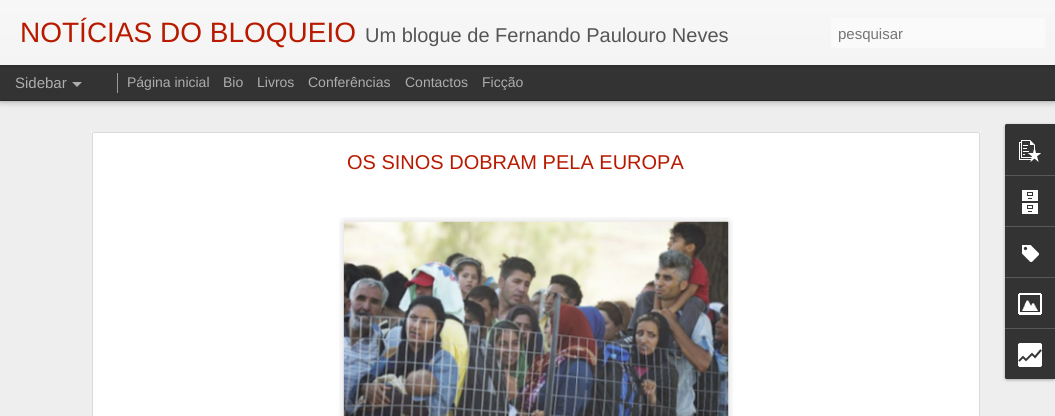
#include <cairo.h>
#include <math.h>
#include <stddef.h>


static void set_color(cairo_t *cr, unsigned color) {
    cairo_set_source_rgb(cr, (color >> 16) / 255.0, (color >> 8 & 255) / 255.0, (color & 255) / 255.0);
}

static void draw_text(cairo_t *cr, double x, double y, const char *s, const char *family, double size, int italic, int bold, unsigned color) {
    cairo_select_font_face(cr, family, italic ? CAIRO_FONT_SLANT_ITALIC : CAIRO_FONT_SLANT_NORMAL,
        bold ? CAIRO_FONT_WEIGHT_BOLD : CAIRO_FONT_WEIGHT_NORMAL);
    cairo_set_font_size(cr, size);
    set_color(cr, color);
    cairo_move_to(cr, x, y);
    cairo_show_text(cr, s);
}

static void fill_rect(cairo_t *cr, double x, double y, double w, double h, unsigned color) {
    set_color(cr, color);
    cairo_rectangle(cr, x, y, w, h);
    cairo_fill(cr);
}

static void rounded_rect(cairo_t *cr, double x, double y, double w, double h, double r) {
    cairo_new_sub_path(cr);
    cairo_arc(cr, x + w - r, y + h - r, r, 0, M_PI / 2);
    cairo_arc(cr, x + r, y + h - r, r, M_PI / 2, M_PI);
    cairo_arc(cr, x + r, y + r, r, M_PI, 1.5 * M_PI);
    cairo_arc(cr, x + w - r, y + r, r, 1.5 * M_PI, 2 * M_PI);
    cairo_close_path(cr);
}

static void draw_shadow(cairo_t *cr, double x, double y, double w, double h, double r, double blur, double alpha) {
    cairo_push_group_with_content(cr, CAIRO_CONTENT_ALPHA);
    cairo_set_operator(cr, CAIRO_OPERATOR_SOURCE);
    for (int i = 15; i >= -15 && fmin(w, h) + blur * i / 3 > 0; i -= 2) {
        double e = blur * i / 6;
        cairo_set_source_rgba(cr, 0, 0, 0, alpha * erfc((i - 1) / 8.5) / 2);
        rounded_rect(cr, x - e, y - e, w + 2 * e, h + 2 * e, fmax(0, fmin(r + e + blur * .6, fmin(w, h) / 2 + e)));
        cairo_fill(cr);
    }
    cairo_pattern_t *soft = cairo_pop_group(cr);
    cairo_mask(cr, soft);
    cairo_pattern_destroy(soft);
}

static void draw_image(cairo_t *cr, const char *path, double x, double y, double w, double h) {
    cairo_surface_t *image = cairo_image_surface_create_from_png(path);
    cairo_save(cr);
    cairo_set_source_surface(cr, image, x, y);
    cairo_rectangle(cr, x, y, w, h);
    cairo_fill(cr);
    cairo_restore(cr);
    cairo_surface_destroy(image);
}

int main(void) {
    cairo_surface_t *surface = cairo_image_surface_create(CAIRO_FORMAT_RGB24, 1055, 416);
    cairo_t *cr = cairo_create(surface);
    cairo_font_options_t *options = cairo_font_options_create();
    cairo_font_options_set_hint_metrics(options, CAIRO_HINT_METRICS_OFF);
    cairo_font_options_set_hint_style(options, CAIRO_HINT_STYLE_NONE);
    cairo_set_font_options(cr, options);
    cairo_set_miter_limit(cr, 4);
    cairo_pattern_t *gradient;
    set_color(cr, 0x333333);
    cairo_paint(cr);
    fill_rect(cr, 0, 101, 1055, 315, 0xEEEEEE);
    set_color(cr, 0x000000);
    draw_shadow(cr, 0, 65, 1055, 35, 0, 4, 0.5);
    fill_rect(cr, 0, 65, 1055, 35, 0x333333);
    fill_rect(cr, 117, 73, 1, 20, 0x999999);
    set_color(cr, 0x000000);
    draw_shadow(cr, 0, 0, 1055, 65, 0, 2.5, 0.3);
    gradient = cairo_pattern_create_linear(0, 0, 0, 65);
    cairo_pattern_add_color_stop_rgba(gradient, 0, 0.969, 0.969, 0.969, 1);
    cairo_pattern_add_color_stop_rgba(gradient, 1, 0.957, 0.957, 0.957, 1);
    cairo_set_source(cr, gradient);
    cairo_pattern_destroy(gradient);
    cairo_rectangle(cr, 0, 0, 1055, 65);
    cairo_fill(cr);
    draw_text(cr, 20, 42, "NOTÍCIAS DO BLOQUEIO", "Liberation Sans", 28, 0, 0, 0xB81A00);
    draw_text(cr, 365, 42, "Um blogue de Fernando Paulouro Neves", "Liberation Sans", 20, 0, 0, 0x555555);
    set_color(cr, 0xFAFAFA);
    rounded_rect(cr, 831, 18, 214, 30, 3);
    cairo_fill(cr);
    cairo_save(cr);
    cairo_rectangle(cr, 838, 25, 200, 17);
    cairo_clip(cr);
    draw_text(cr, 838, 39, "pesquisar", "Liberation Sans", 15, 0, 0, 0x757575);
    cairo_restore(cr);
    draw_text(cr, 15, 88, "Sidebar", "Liberation Sans", 15, 0, 0, 0xADADAD);
    cairo_new_path(cr);
    cairo_move_to(cr, 72, 82);
    cairo_line_to(cr, 82, 82);
    cairo_line_to(cr, 77, 87);
    cairo_close_path(cr);
    cairo_fill(cr);
    draw_text(cr, 127, 87, "Página inicial", "Liberation Sans", 14, 0, 0, 0xADADAD);
    draw_text(cr, 223, 87, "Bio", "Liberation Sans", 14, 0, 0, 0xADADAD);
    draw_text(cr, 257, 87, "Livros", "Liberation Sans", 14, 0, 0, 0xADADAD);
    draw_text(cr, 308, 87, "Conferências", "Liberation Sans", 14, 0, 0, 0xADADAD);
    draw_text(cr, 405, 87, "Contactos", "Liberation Sans", 14, 0, 0, 0xADADAD);
    draw_text(cr, 482, 87, "Ficção", "Liberation Sans", 14, 0, 0, 0xADADAD);
    fill_rect(cr, 91, 131, 890, 285, 0xFFFFFF);
    draw_image(cr, "assets/img1.png", 91, 131, 890, 285);
    draw_text(cr, 347, 169, "OS SINOS DOBRAM PELA EUROPA", "Liberation Sans", 20, 0, 0, 0xB81A00);
    draw_image(cr, "assets/img2.png", 339, 217, 394, 199);
    draw_image(cr, "assets/img3.png", 343, 221, 386, 195);
    set_color(cr, 0x000000);
    draw_shadow(cr, 1005, 125, 50, 255, 2, 1.5, 0.3);
    set_color(cr, 0x333333);
    cairo_new_path(cr);
    cairo_move_to(cr, 1007, 124);
    cairo_line_to(cr, 1055, 124);
    cairo_line_to(cr, 1055, 379);
    cairo_line_to(cr, 1007, 379);
    cairo_curve_to(cr, 1006, 379, 1005, 378, 1005, 377);
    cairo_line_to(cr, 1005, 126);
    cairo_curve_to(cr, 1005, 125, 1006, 124, 1007, 124);
    cairo_close_path(cr);
    cairo_fill(cr);
    cairo_new_path(cr);
    cairo_move_to(cr, 1007, 124);
    cairo_line_to(cr, 1055, 124);
    cairo_line_to(cr, 1055, 175);
    cairo_line_to(cr, 1005, 175);
    cairo_line_to(cr, 1005, 126);
    cairo_curve_to(cr, 1005, 125, 1006, 124, 1007, 124);
    cairo_close_path(cr);
    cairo_fill(cr);
    draw_image(cr, "assets/img4.png", 1019, 140, 22, 22);
    fill_rect(cr, 1005, 175, 50, 1, 0x585858);
    draw_image(cr, "assets/img5.png", 1022, 190, 16, 24);
    fill_rect(cr, 1005, 226, 50, 1, 0x585858);
    draw_image(cr, "assets/img6.png", 1022, 245, 17, 17);
    fill_rect(cr, 1005, 277, 50, 1, 0x585858);
    draw_image(cr, "assets/img7.png", 1018, 293, 24, 22);
    set_color(cr, 0x333333);
    cairo_new_path(cr);
    cairo_move_to(cr, 1005, 328);
    cairo_line_to(cr, 1055, 328);
    cairo_line_to(cr, 1055, 379);
    cairo_line_to(cr, 1007, 379);
    cairo_curve_to(cr, 1006, 379, 1005, 378, 1005, 377);
    cairo_close_path(cr);
    cairo_fill(cr);
    fill_rect(cr, 1005, 328, 50, 1, 0x585858);
    draw_image(cr, "assets/img8.png", 1018, 343, 24, 24);
    cairo_surface_write_to_png(surface, "output.png");
    cairo_font_options_destroy(options);
    cairo_destroy(cr);
    cairo_surface_destroy(surface);
    return 0;
}
